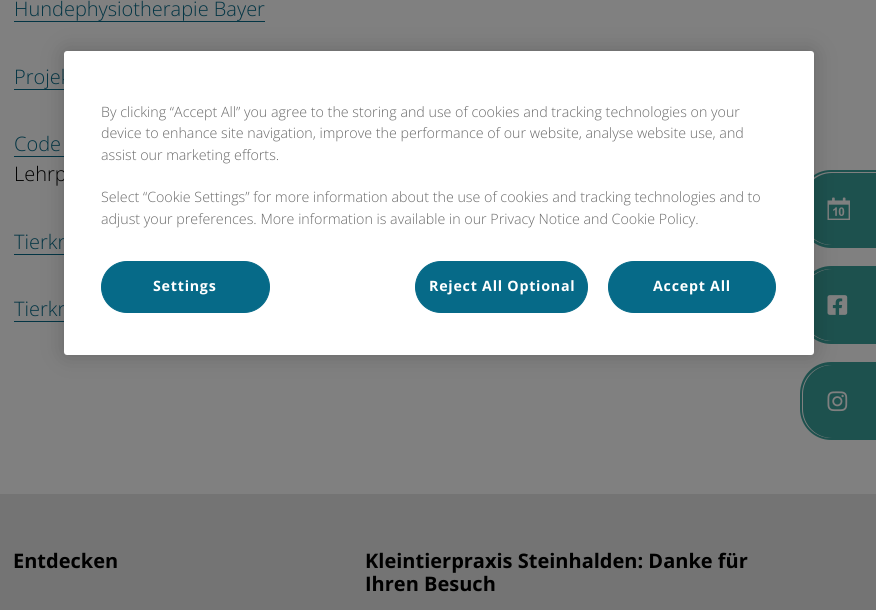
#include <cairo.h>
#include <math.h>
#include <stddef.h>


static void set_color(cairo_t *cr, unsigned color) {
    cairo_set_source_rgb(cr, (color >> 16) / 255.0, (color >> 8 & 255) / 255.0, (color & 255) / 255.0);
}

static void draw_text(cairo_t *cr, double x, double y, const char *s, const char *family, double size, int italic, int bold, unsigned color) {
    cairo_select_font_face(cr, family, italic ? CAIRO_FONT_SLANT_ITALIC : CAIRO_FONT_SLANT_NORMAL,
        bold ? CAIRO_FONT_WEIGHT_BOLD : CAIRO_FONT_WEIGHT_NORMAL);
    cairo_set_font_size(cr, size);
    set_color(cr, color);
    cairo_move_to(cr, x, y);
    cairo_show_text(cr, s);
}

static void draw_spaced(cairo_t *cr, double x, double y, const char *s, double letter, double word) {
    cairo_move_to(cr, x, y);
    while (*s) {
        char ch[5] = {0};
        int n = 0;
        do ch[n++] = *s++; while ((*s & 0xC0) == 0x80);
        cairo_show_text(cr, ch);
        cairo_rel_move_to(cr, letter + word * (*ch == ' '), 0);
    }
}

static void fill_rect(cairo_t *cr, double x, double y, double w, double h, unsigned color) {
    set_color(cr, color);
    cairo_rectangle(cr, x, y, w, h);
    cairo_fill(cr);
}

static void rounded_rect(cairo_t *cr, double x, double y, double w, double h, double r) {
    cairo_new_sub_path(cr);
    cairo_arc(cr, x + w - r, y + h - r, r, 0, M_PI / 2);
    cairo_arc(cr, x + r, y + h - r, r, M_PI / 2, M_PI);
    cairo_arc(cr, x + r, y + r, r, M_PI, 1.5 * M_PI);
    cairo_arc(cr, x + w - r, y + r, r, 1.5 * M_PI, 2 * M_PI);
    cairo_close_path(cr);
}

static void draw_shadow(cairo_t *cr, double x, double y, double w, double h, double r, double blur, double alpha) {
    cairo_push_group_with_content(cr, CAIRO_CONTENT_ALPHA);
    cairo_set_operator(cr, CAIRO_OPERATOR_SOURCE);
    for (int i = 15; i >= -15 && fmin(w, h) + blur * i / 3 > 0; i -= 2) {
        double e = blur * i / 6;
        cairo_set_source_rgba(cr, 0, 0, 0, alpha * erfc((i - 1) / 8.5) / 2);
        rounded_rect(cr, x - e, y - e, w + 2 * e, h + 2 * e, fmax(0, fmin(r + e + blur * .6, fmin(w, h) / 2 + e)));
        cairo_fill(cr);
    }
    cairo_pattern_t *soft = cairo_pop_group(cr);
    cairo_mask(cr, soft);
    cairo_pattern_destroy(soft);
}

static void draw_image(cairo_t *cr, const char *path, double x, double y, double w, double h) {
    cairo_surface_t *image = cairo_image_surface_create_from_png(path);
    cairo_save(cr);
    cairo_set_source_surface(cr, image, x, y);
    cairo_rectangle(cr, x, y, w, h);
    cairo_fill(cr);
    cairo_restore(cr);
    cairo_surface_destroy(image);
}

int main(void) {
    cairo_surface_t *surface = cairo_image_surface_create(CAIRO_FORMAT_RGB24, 876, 610);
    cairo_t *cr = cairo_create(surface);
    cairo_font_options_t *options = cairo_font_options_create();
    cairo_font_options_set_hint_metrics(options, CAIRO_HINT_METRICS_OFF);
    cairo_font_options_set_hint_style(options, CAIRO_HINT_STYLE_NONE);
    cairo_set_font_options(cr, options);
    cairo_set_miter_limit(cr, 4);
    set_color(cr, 0x808080);
    cairo_paint(cr);
    draw_text(cr, 14, 16, "Hundephysiotherapie Bayer", "Open Sans Light", 20, 0, 0, 0x033544);
    fill_rect(cr, 14, 21, 251, 1, 0x033544);
    draw_text(cr, 14, 84, "Projek", "Open Sans Light", 20, 0, 0, 0x033544);
    fill_rect(cr, 14, 89, 50, 1, 0x033544);
    draw_text(cr, 14, 151, "Code", "Open Sans Light", 20, 0, 0, 0x033544);
    fill_rect(cr, 14, 156, 50, 1, 0x033544);
    draw_text(cr, 14, 181, "Lehrp", "Open Sans Light", 20, 0, 0, 0x000000);
    draw_text(cr, 14, 249, "Tierkr", "Open Sans Light", 20, 0, 0, 0x033544);
    fill_rect(cr, 14, 254, 50, 1, 0x033544);
    draw_text(cr, 14, 316, "Tierkr", "Open Sans Light", 20, 0, 0, 0x033544);
    fill_rect(cr, 14, 321, 50, 1, 0x033544);
    set_color(cr, 0x1D514E);
    cairo_new_path(cr);
    cairo_move_to(cr, 832, 173);
    cairo_line_to(cr, 876, 173);
    cairo_line_to(cr, 876, 245);
    cairo_line_to(cr, 832, 245);
    cairo_curve_to(cr, 816, 245, 803, 232, 803, 216);
    cairo_line_to(cr, 803, 202);
    cairo_curve_to(cr, 803, 186, 816, 173, 832, 173);
    cairo_close_path(cr);
    cairo_fill(cr);
    cairo_set_fill_rule(cr, CAIRO_FILL_RULE_EVEN_ODD);
    cairo_new_path(cr);
    cairo_move_to(cr, 831, 170);
    cairo_line_to(cr, 876, 170);
    cairo_line_to(cr, 876, 248);
    cairo_line_to(cr, 831, 248);
    cairo_curve_to(cr, 814, 248, 800, 234, 800, 216);
    cairo_line_to(cr, 800, 201);
    cairo_curve_to(cr, 800, 184, 814, 170, 831, 170);
    cairo_close_path(cr);
    cairo_move_to(cr, 831, 172);
    cairo_line_to(cr, 876, 172);
    cairo_line_to(cr, 876, 245);
    cairo_line_to(cr, 831, 245);
    cairo_curve_to(cr, 815, 245, 802, 232, 802, 216);
    cairo_line_to(cr, 802, 201);
    cairo_curve_to(cr, 802, 185, 815, 172, 831, 172);
    cairo_close_path(cr);
    cairo_fill(cr);
    draw_image(cr, "assets/img1.png", 827, 197, 23, 23);
    cairo_new_path(cr);
    cairo_move_to(cr, 832, 269);
    cairo_line_to(cr, 876, 269);
    cairo_line_to(cr, 876, 341);
    cairo_line_to(cr, 832, 341);
    cairo_curve_to(cr, 816, 341, 803, 328, 803, 312);
    cairo_line_to(cr, 803, 298);
    cairo_curve_to(cr, 803, 282, 816, 269, 832, 269);
    cairo_close_path(cr);
    cairo_fill(cr);
    cairo_new_path(cr);
    cairo_move_to(cr, 831, 266);
    cairo_line_to(cr, 876, 266);
    cairo_line_to(cr, 876, 344);
    cairo_line_to(cr, 831, 344);
    cairo_curve_to(cr, 814, 344, 800, 330, 800, 312);
    cairo_line_to(cr, 800, 298);
    cairo_curve_to(cr, 800, 280, 814, 266, 831, 266);
    cairo_close_path(cr);
    cairo_move_to(cr, 831, 269);
    cairo_line_to(cr, 876, 269);
    cairo_line_to(cr, 876, 341);
    cairo_line_to(cr, 831, 341);
    cairo_curve_to(cr, 815, 341, 802, 328, 802, 312);
    cairo_line_to(cr, 802, 298);
    cairo_curve_to(cr, 802, 282, 815, 269, 831, 269);
    cairo_close_path(cr);
    cairo_fill(cr);
    draw_image(cr, "assets/img2.png", 827, 295, 21, 20);
    cairo_new_path(cr);
    cairo_move_to(cr, 832, 365);
    cairo_line_to(cr, 876, 365);
    cairo_line_to(cr, 876, 438);
    cairo_line_to(cr, 832, 438);
    cairo_curve_to(cr, 816, 438, 803, 425, 803, 409);
    cairo_line_to(cr, 803, 394);
    cairo_curve_to(cr, 803, 378, 816, 365, 832, 365);
    cairo_close_path(cr);
    cairo_fill(cr);
    cairo_new_path(cr);
    cairo_move_to(cr, 831, 362);
    cairo_line_to(cr, 876, 362);
    cairo_line_to(cr, 876, 440);
    cairo_line_to(cr, 831, 440);
    cairo_curve_to(cr, 814, 440, 800, 426, 800, 409);
    cairo_line_to(cr, 800, 394);
    cairo_curve_to(cr, 800, 376, 814, 362, 831, 362);
    cairo_close_path(cr);
    cairo_move_to(cr, 831, 365);
    cairo_line_to(cr, 876, 365);
    cairo_line_to(cr, 876, 438);
    cairo_line_to(cr, 831, 438);
    cairo_curve_to(cr, 815, 438, 802, 425, 802, 409);
    cairo_line_to(cr, 802, 394);
    cairo_curve_to(cr, 802, 378, 815, 365, 831, 365);
    cairo_close_path(cr);
    cairo_fill(cr);
    draw_image(cr, "assets/img3.png", 827, 391, 21, 21);
    fill_rect(cr, 0, 494, 876, 116, 0x747474);
    draw_text(cr, 13, 568, "Entdecken", "Open Sans", 20, 0, 1, 0x000000);
    draw_text(cr, 365, 568, "Kleintierpraxis Steinhalden: Danke für", "Open Sans", 20, 0, 1, 0x000000);
    draw_text(cr, 365, 591, "Ihren Besuch", "Open Sans", 20, 0, 1, 0x000000);
    set_color(cr, 0x000000);
    draw_shadow(cr, 64, 51, 750, 304, 3, 11, 0.2);
    set_color(cr, 0xFFFFFF);
    rounded_rect(cr, 64, 51, 750, 304, 3);
    cairo_fill(cr);
    draw_text(cr, 101, 117, "By clicking “Accept All” you agree to the storing and use of cookies and tracking technologies on your", "Open Sans Light", 14.25, 0, 0, 0x696969);
    draw_text(cr, 101, 138, "device to enhance site navigation, improve the performance of our website, analyse website use, and", "Open Sans Light", 14.25, 0, 0, 0x696969);
    draw_text(cr, 101, 160, "assist our marketing efforts.", "Open Sans Light", 14.25, 0, 0, 0x696969);
    draw_text(cr, 101, 202, "Select “Cookie Settings” for more information about the use of cookies and tracking technologies and to", "Open Sans Light", 14.25, 0, 0, 0x696969);
    draw_text(cr, 101, 224, "adjust your preferences. More information is available in our Privacy Notice and Cookie Policy.", "Open Sans Light", 14.25, 0, 0, 0x696969);
    set_color(cr, 0x066A88);
    rounded_rect(cr, 101.5, 261.5, 168, 51, 25.5);
    cairo_fill_preserve(cr);
    cairo_set_line_width(cr, 1);
    cairo_stroke(cr);
    cairo_select_font_face(cr, "Open Sans", CAIRO_FONT_SLANT_NORMAL, CAIRO_FONT_WEIGHT_BOLD);
    set_color(cr, 0xFFFFFF);
    draw_spaced(cr, 153, 291, "Settings", 0.75, 0);
    set_color(cr, 0x066A88);
    rounded_rect(cr, 415.5, 261.5, 172, 51, 25.5);
    cairo_fill_preserve(cr);
    cairo_stroke(cr);
    set_color(cr, 0xFFFFFF);
    draw_spaced(cr, 429, 291, "Reject All Optional", 0.75, 0);
    set_color(cr, 0x066A88);
    rounded_rect(cr, 608.5, 261.5, 167, 51, 25.5);
    cairo_fill_preserve(cr);
    cairo_stroke(cr);
    set_color(cr, 0xFFFFFF);
    draw_spaced(cr, 653, 291, "Accept All", 0.75, 0);
    cairo_surface_write_to_png(surface, "output.png");
    cairo_font_options_destroy(options);
    cairo_destroy(cr);
    cairo_surface_destroy(surface);
    return 0;
}
